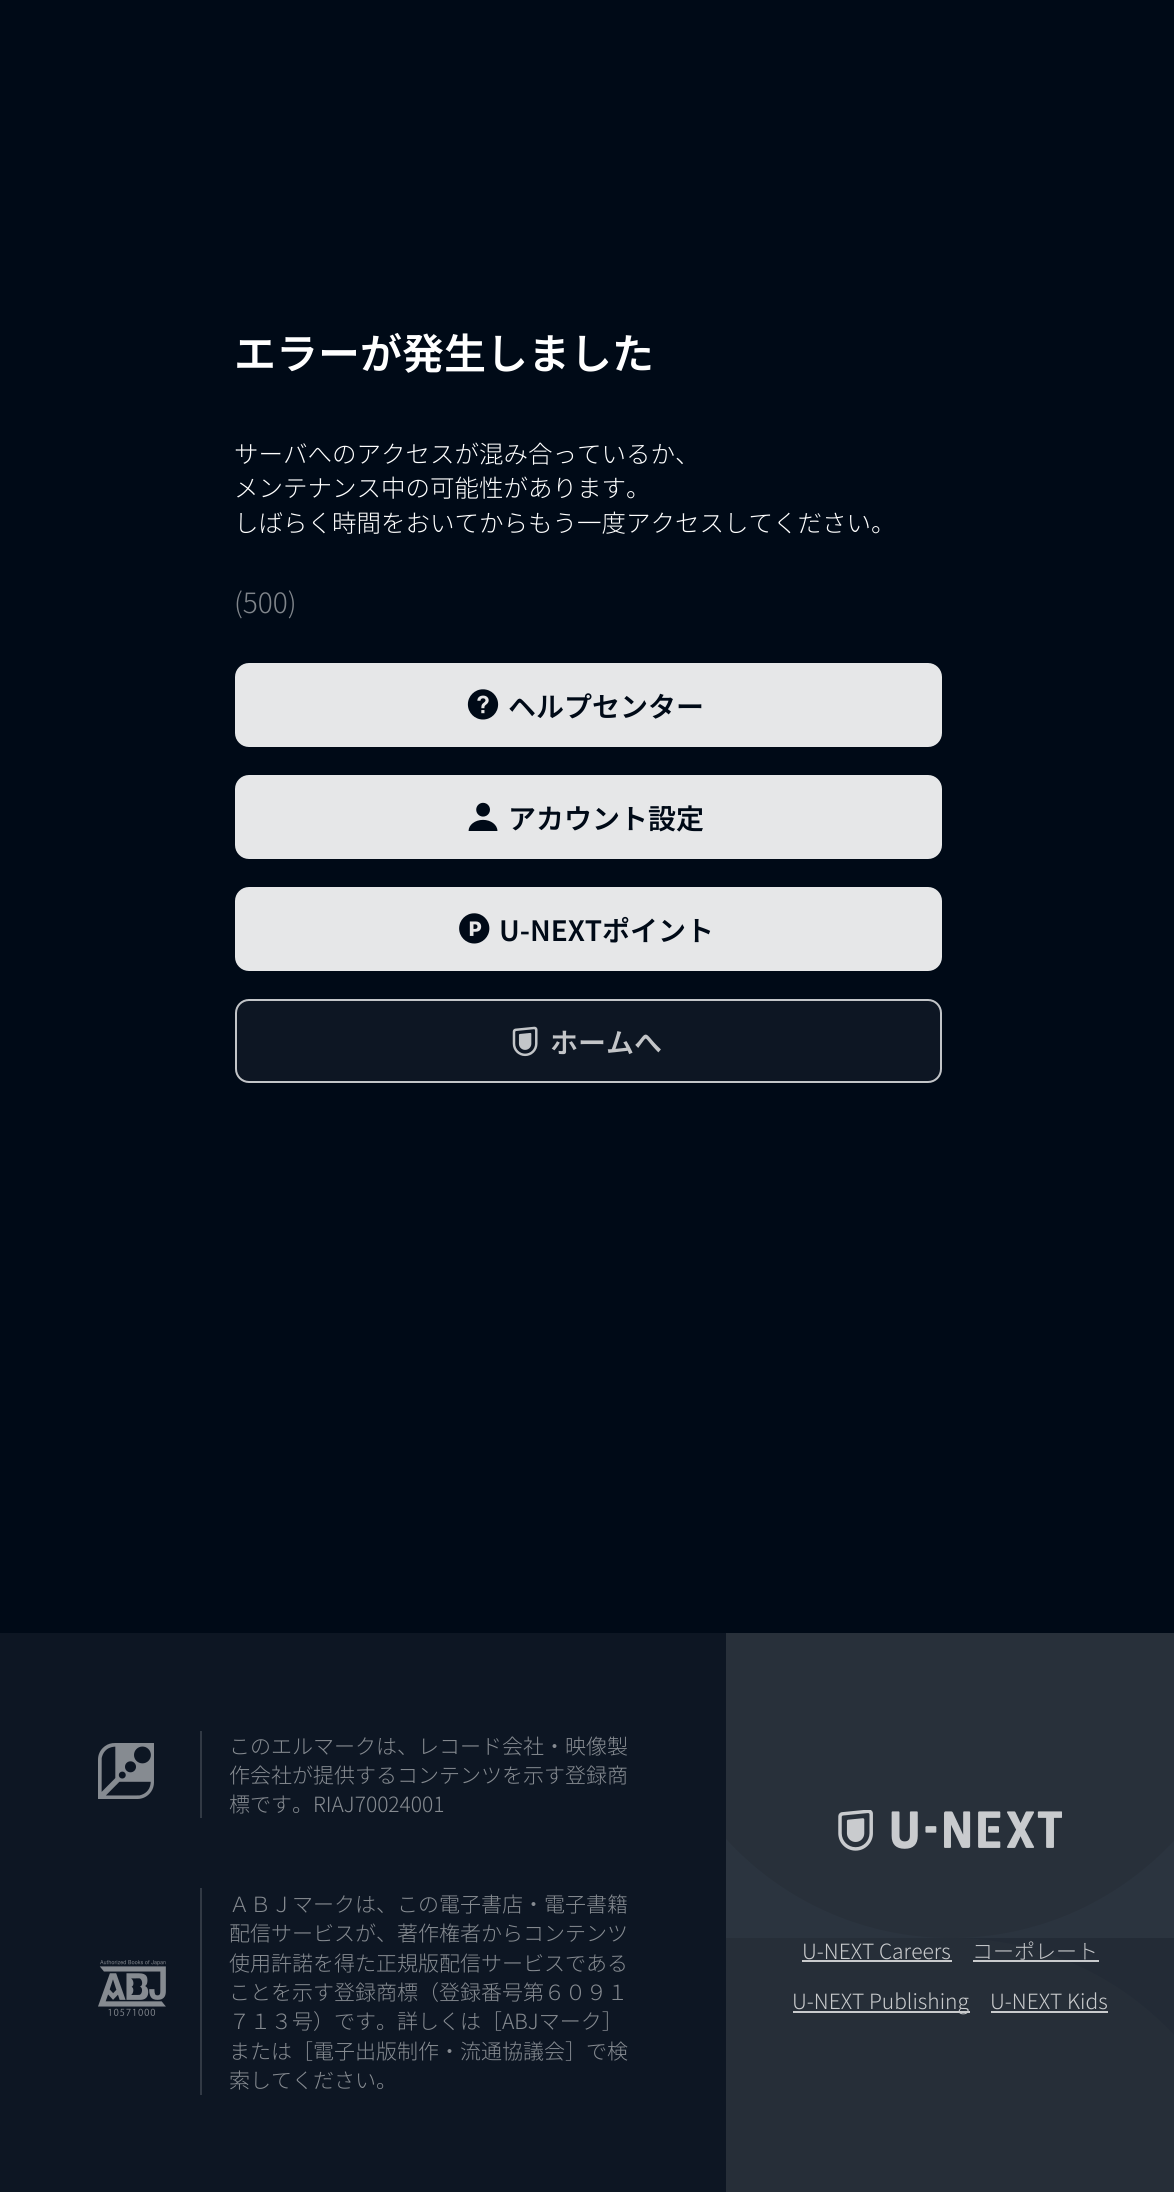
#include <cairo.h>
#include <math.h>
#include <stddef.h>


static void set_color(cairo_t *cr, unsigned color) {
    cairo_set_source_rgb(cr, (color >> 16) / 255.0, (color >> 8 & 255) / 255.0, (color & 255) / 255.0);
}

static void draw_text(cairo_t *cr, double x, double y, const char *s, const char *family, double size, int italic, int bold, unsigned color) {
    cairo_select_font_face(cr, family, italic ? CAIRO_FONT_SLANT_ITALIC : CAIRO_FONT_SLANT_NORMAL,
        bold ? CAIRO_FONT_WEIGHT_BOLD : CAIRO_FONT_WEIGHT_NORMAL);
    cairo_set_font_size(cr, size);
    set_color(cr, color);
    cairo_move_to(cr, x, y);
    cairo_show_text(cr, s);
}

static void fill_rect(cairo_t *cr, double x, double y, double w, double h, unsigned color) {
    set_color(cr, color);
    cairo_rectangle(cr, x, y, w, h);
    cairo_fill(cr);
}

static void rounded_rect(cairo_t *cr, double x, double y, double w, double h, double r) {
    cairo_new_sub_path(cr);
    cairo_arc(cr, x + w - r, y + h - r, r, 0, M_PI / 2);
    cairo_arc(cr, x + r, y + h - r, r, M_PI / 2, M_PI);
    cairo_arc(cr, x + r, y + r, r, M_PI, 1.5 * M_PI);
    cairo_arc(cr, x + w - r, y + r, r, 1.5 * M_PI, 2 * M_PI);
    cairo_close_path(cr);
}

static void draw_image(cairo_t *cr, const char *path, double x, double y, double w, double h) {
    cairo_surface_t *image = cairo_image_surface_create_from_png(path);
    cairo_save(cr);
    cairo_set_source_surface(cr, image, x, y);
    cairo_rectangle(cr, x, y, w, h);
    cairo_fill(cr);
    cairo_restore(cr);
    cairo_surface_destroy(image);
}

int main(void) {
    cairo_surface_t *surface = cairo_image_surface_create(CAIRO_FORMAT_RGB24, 1174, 2192);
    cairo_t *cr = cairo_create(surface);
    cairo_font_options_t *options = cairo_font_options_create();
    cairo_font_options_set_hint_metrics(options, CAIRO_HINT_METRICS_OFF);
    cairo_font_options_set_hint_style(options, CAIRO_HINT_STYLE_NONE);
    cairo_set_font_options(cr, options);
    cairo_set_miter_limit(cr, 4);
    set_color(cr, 0x000A17);
    cairo_paint(cr);
    draw_text(cr, 234, 369, "エラーが発生しました", "Noto Sans JP SemiBold", 42, 0, 0, 0xFFFFFF);
    draw_text(cr, 234, 463, "サーバへのアクセスが混み合っているか、", "Noto Sans JP Light", 24.5, 0, 0, 0xFFFFFF);
    draw_text(cr, 234, 497, "メンテナンス中の可能性があります。", "Noto Sans JP Light", 24.5, 0, 0, 0xFFFFFF);
    draw_text(cr, 234, 532, "しばらく時間をおいてからもう一度アクセスしてください。", "Noto Sans JP Light", 24.5, 0, 0, 0xFFFFFF);
    draw_text(cr, 234, 613, "(500)", "Noto Sans JP Light", 28, 0, 0, 0x80858B);
    set_color(cr, 0xE6E7E8);
    rounded_rect(cr, 235, 663, 707, 84, 14);
    cairo_fill(cr);
    draw_image(cr, "assets/img1.png", 467, 689, 32, 31);
    draw_text(cr, 508, 717, "ヘルプセンター", "Noto Sans JP SemiBold", 28, 0, 0, 0x000A17);
    set_color(cr, 0xE6E7E8);
    rounded_rect(cr, 235, 775, 707, 84, 14);
    cairo_fill(cr);
    draw_image(cr, "assets/img2.png", 468, 802, 30, 29);
    draw_text(cr, 508, 829, "アカウント設定", "Noto Sans JP SemiBold", 28, 0, 0, 0x000A17);
    set_color(cr, 0xE6E7E8);
    rounded_rect(cr, 235, 887, 707, 84, 14);
    cairo_fill(cr);
    draw_image(cr, "assets/img3.png", 459, 913, 31, 31);
    draw_text(cr, 499, 941, "U-NEXTポイント", "Noto Sans JP SemiBold", 28, 0, 0, 0x000A17);
    set_color(cr, 0x0D1623);
    rounded_rect(cr, 235, 999, 707, 84, 14);
    cairo_fill(cr);
    rounded_rect(cr, 236, 1000, 705, 82, 13);
    cairo_set_source_rgba(cr, 1, 1, 1, 0.75);
    cairo_stroke(cr);
    draw_image(cr, "assets/img4.png", 512, 1026, 26, 31);
    draw_text(cr, 550, 1053, "ホームへ", "Noto Sans JP SemiBold", 28, 0, 0, 0xC3C5C8);
    fill_rect(cr, 0, 1633, 726, 559, 0x0D1623);
    draw_image(cr, "assets/img5.png", 98, 1743, 56, 56);
    fill_rect(cr, 200, 1731, 2, 87, 0x313944);
    draw_text(cr, 229, 1754, "このエルマークは、レコード会社・映像製", "Noto Sans JP Light", 21, 0, 0, 0x868B91);
    draw_text(cr, 229, 1783, "作会社が提供するコンテンツを示す登録商", "Noto Sans JP Light", 21, 0, 0, 0x868B91);
    draw_text(cr, 229, 1812, "標です。RIAJ70024001", "Noto Sans JP Light", 21, 0, 0, 0x868B91);
    draw_image(cr, "assets/img6.png", 98, 1960, 68, 56);
    fill_rect(cr, 200, 1888, 2, 207, 0x313944);
    draw_text(cr, 229, 1912, "ＡＢＪマークは、この電子書店・電子書籍", "Noto Sans JP Light", 21, 0, 0, 0x868B91);
    draw_text(cr, 229, 1941, "配信サービスが、著作権者からコンテンツ", "Noto Sans JP Light", 21, 0, 0, 0x868B91);
    draw_text(cr, 229, 1971, "使用許諾を得た正規版配信サービスである", "Noto Sans JP Light", 21, 0, 0, 0x868B91);
    draw_text(cr, 229, 2000, "ことを示す登録商標（登録番号第６０９１", "Noto Sans JP Light", 21, 0, 0, 0x868B91);
    draw_text(cr, 229, 2029, "７１３号）です。詳しくは［ABJマーク］", "Noto Sans JP Light", 21, 0, 0, 0x868B91);
    draw_text(cr, 229, 2059, "または［電子出版制作・流通協議会］で検", "Noto Sans JP Light", 21, 0, 0, 0x868B91);
    draw_text(cr, 229, 2088, "索してください。", "Noto Sans JP Light", 21, 0, 0, 0x868B91);
    fill_rect(cr, 953, 1938, 221, 97, 0x232B36);
    cairo_save(cr);
    cairo_rectangle(cr, 726, 1633, 448, 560);
    cairo_clip(cr);
    set_color(cr, 0x262E38);
    cairo_set_fill_rule(cr, CAIRO_FILL_RULE_EVEN_ODD);
    cairo_new_path(cr);
    cairo_move_to(cr, 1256, 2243);
    cairo_curve_to(cr, 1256, 2074, 1119, 1938, 951, 1938);
    cairo_line_to(cr, 646, 1938);
    cairo_line_to(cr, 646, 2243);
    cairo_close_path(cr);
    cairo_fill(cr);
    cairo_restore(cr);
    fill_rect(cr, 726, 1839, 448, 99, 0x2B343F);
    cairo_save(cr);
    cairo_rectangle(cr, 726, 1633, 448, 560);
    cairo_clip(cr);
    set_color(cr, 0x28303A);
    cairo_set_fill_rule(cr, CAIRO_FILL_RULE_EVEN_ODD);
    cairo_new_path(cr);
    cairo_move_to(cr, 951, 1938);
    cairo_curve_to(cr, 782, 1938, 646, 1801, 646, 1633);
    cairo_line_to(cr, 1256, 1633);
    cairo_curve_to(cr, 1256, 1801, 1119, 1938, 951, 1938);
    cairo_close_path(cr);
    cairo_fill(cr);
    cairo_restore(cr);
    draw_image(cr, "assets/img7.png", 838, 1810, 224, 41);
    draw_text(cr, 802, 1959, "U-NEXT Careers", "Noto Sans JP Light", 21, 0, 0, 0xC9CBCD);
    fill_rect(cr, 802, 1960, 150, 2, 0xC9CBCD);
    draw_text(cr, 972, 1959, "コーポレート", "Noto Sans JP Light", 21, 0, 0, 0xC3C5C8);
    cairo_set_source_rgba(cr, 1, 1, 1, 0.75);
    cairo_rectangle(cr, 973, 1960, 126, 2);
    cairo_fill(cr);
    fill_rect(cr, 793, 2011, 177, 2, 0xC9CBCD);
    draw_text(cr, 792, 2009, "U-NEXT Publishing", "Noto Sans JP Light", 21, 0, 0, 0xC9CBCD);
    draw_text(cr, 990, 2009, "U-NEXT Kids", "Noto Sans JP Light", 21, 0, 0, 0xC9CBCD);
    fill_rect(cr, 991, 2011, 117, 2, 0xC9CBCD);
    cairo_surface_write_to_png(surface, "output.png");
    cairo_font_options_destroy(options);
    cairo_destroy(cr);
    cairo_surface_destroy(surface);
    return 0;
}
